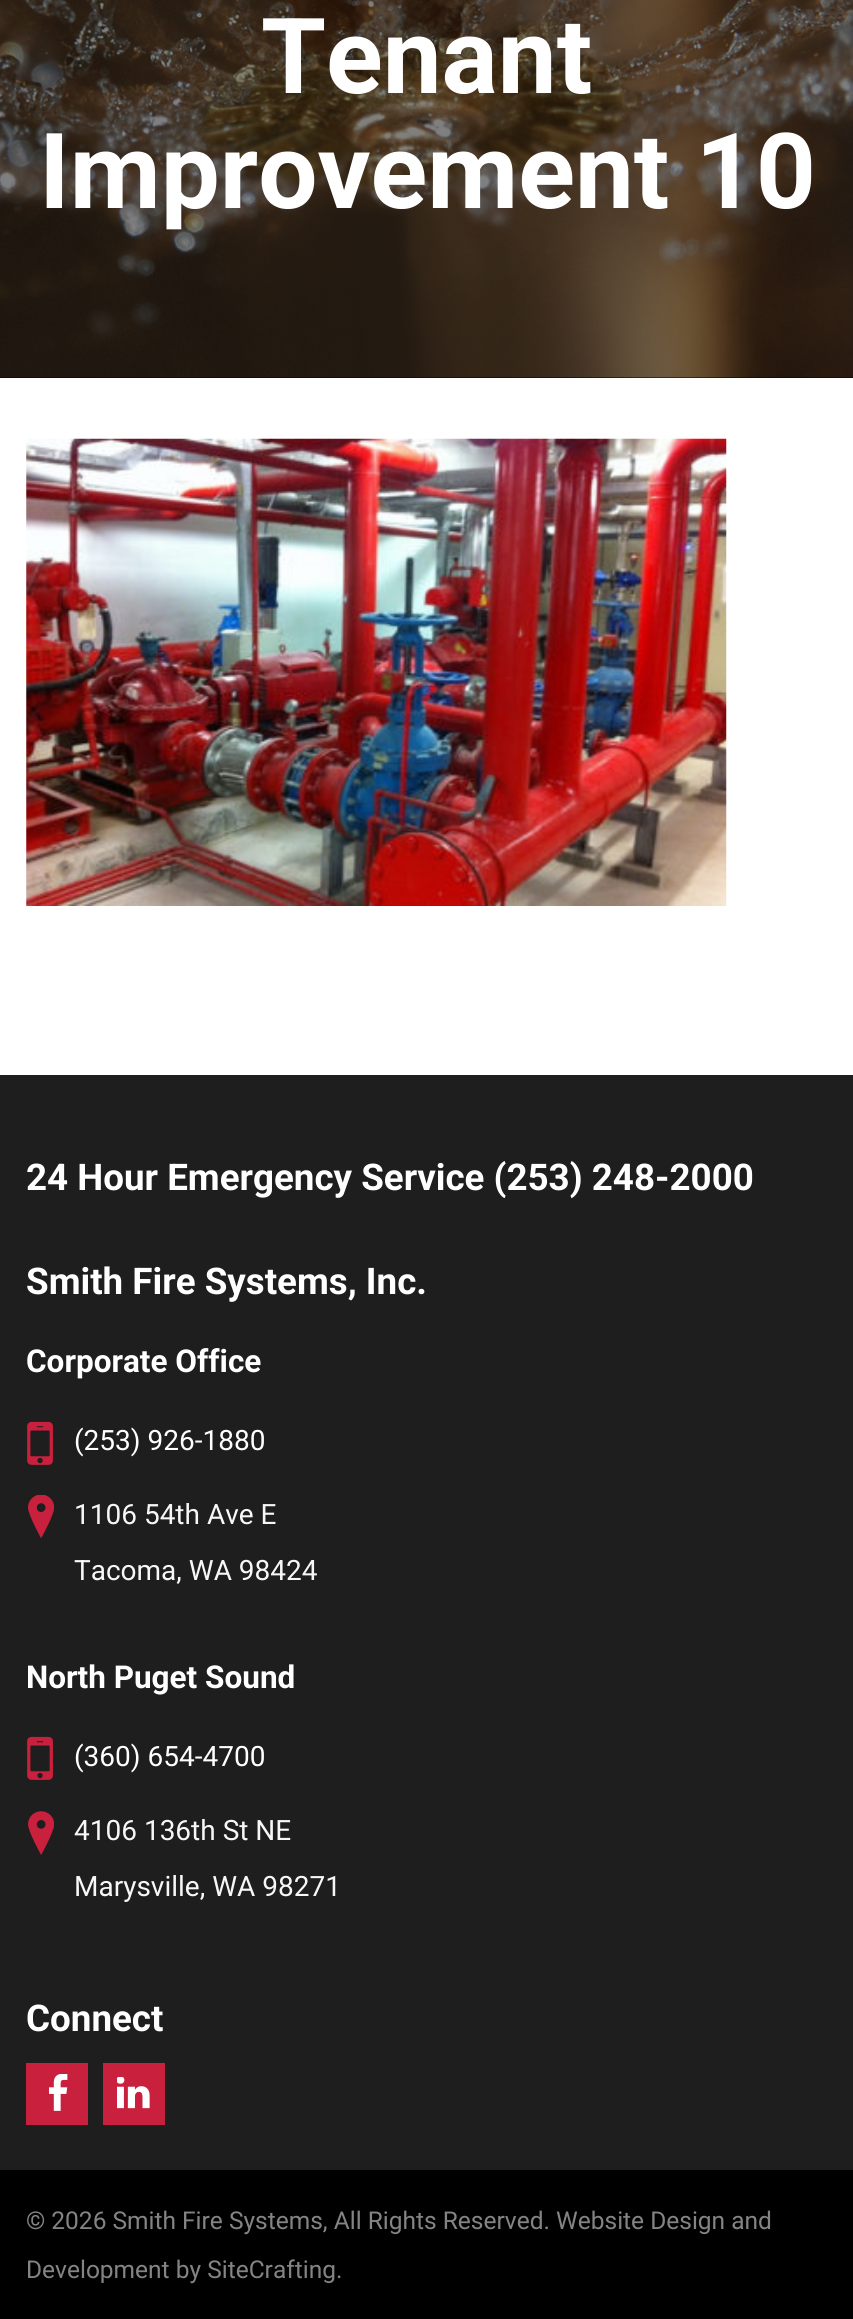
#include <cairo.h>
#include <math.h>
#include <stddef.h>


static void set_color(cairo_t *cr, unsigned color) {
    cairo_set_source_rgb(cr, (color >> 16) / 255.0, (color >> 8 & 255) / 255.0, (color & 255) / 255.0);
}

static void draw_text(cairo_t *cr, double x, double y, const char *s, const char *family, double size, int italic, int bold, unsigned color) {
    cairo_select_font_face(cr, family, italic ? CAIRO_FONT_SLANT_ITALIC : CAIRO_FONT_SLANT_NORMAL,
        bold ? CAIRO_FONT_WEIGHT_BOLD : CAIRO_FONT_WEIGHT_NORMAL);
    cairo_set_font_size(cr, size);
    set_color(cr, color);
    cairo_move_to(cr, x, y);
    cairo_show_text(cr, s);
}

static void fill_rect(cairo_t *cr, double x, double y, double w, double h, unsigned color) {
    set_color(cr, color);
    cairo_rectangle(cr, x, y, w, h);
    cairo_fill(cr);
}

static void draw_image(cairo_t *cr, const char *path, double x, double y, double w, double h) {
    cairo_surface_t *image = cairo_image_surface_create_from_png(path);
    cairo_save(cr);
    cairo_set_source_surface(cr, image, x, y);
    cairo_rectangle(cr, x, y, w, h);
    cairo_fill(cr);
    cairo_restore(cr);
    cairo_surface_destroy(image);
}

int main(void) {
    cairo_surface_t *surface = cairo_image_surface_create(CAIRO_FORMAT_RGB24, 853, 2319);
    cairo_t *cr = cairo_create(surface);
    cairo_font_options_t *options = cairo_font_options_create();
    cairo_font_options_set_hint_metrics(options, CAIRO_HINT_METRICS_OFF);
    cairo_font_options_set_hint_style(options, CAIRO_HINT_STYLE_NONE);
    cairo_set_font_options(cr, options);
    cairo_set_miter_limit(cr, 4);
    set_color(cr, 0xFFFFFF);
    cairo_paint(cr);
    fill_rect(cr, 0, 377, 853, 1, 0x000000);
    draw_image(cr, "assets/img1.png", 0, 0, 853, 378);
    draw_text(cr, 261, 93, "Tenant", "Roboto", 105, 0, 1, 0xFFFFFF);
    draw_text(cr, 39, 208, "Improvement 10", "Roboto", 105, 0, 1, 0xFFFFFF);
    draw_image(cr, "assets/img2.png", 26, 438, 701, 468);
    fill_rect(cr, 0, 1075, 853, 1095, 0x1E1E1E);
    draw_text(cr, 26, 1190, "24 Hour Emergency Service (253) 248-2000", "Roboto", 36.75, 0, 1, 0xFFFFFF);
    draw_text(cr, 26, 1294, "Smith Fire Systems, Inc.", "Roboto", 36.75, 0, 1, 0xFFFFFF);
    draw_text(cr, 26, 1372, "Corporate Office", "Roboto", 31.5, 0, 1, 0xFFFFFF);
    draw_image(cr, "assets/img3.png", 27, 1421, 26, 44);
    draw_text(cr, 74, 1450, "(253) 926-1880", "Roboto", 28, 0, 0, 0xFFFFFF);
    draw_image(cr, "assets/img4.png", 28, 1495, 26, 43);
    draw_text(cr, 74, 1524, "1106 54th Ave E", "Roboto", 28, 0, 0, 0xF7F7F7);
    draw_text(cr, 74, 1580, "Tacoma, WA 98424", "Roboto", 28, 0, 0, 0xF7F7F7);
    draw_text(cr, 26, 1688, "North Puget Sound", "Roboto", 31.5, 0, 1, 0xFFFFFF);
    draw_image(cr, "assets/img3.png", 27, 1736, 26, 44);
    draw_text(cr, 74, 1766, "(360) 654-4700", "Roboto", 28, 0, 0, 0xFFFFFF);
    draw_image(cr, "assets/img5.png", 28, 1811, 26, 44);
    draw_text(cr, 74, 1840, "4106 136th St NE", "Roboto", 28, 0, 0, 0xF7F7F7);
    draw_text(cr, 74, 1896, "Marysville, WA 98271", "Roboto", 28, 0, 0, 0xF7F7F7);
    draw_text(cr, 26, 2031, "Connect", "Roboto", 36.75, 0, 1, 0xFFFFFF);
    fill_rect(cr, 26, 2063, 62, 62, 0xC9203D);
    draw_image(cr, "assets/img6.png", 49, 2074, 19, 37);
    fill_rect(cr, 103, 2063, 62, 62, 0xC9203D);
    draw_image(cr, "assets/img7.png", 117, 2077, 33, 32);
    fill_rect(cr, 0, 2170, 853, 149, 0x000000);
    draw_text(cr, 26, 2229, "© 2026 Smith Fire Systems, All Rights Reserved. Website Design and", "Roboto", 24.5, 0, 0, 0x848484);
    draw_text(cr, 26, 2278, "Development by SiteCrafting.", "Roboto", 24.5, 0, 0, 0x848484);
    cairo_surface_write_to_png(surface, "output.png");
    cairo_font_options_destroy(options);
    cairo_destroy(cr);
    cairo_surface_destroy(surface);
    return 0;
}
